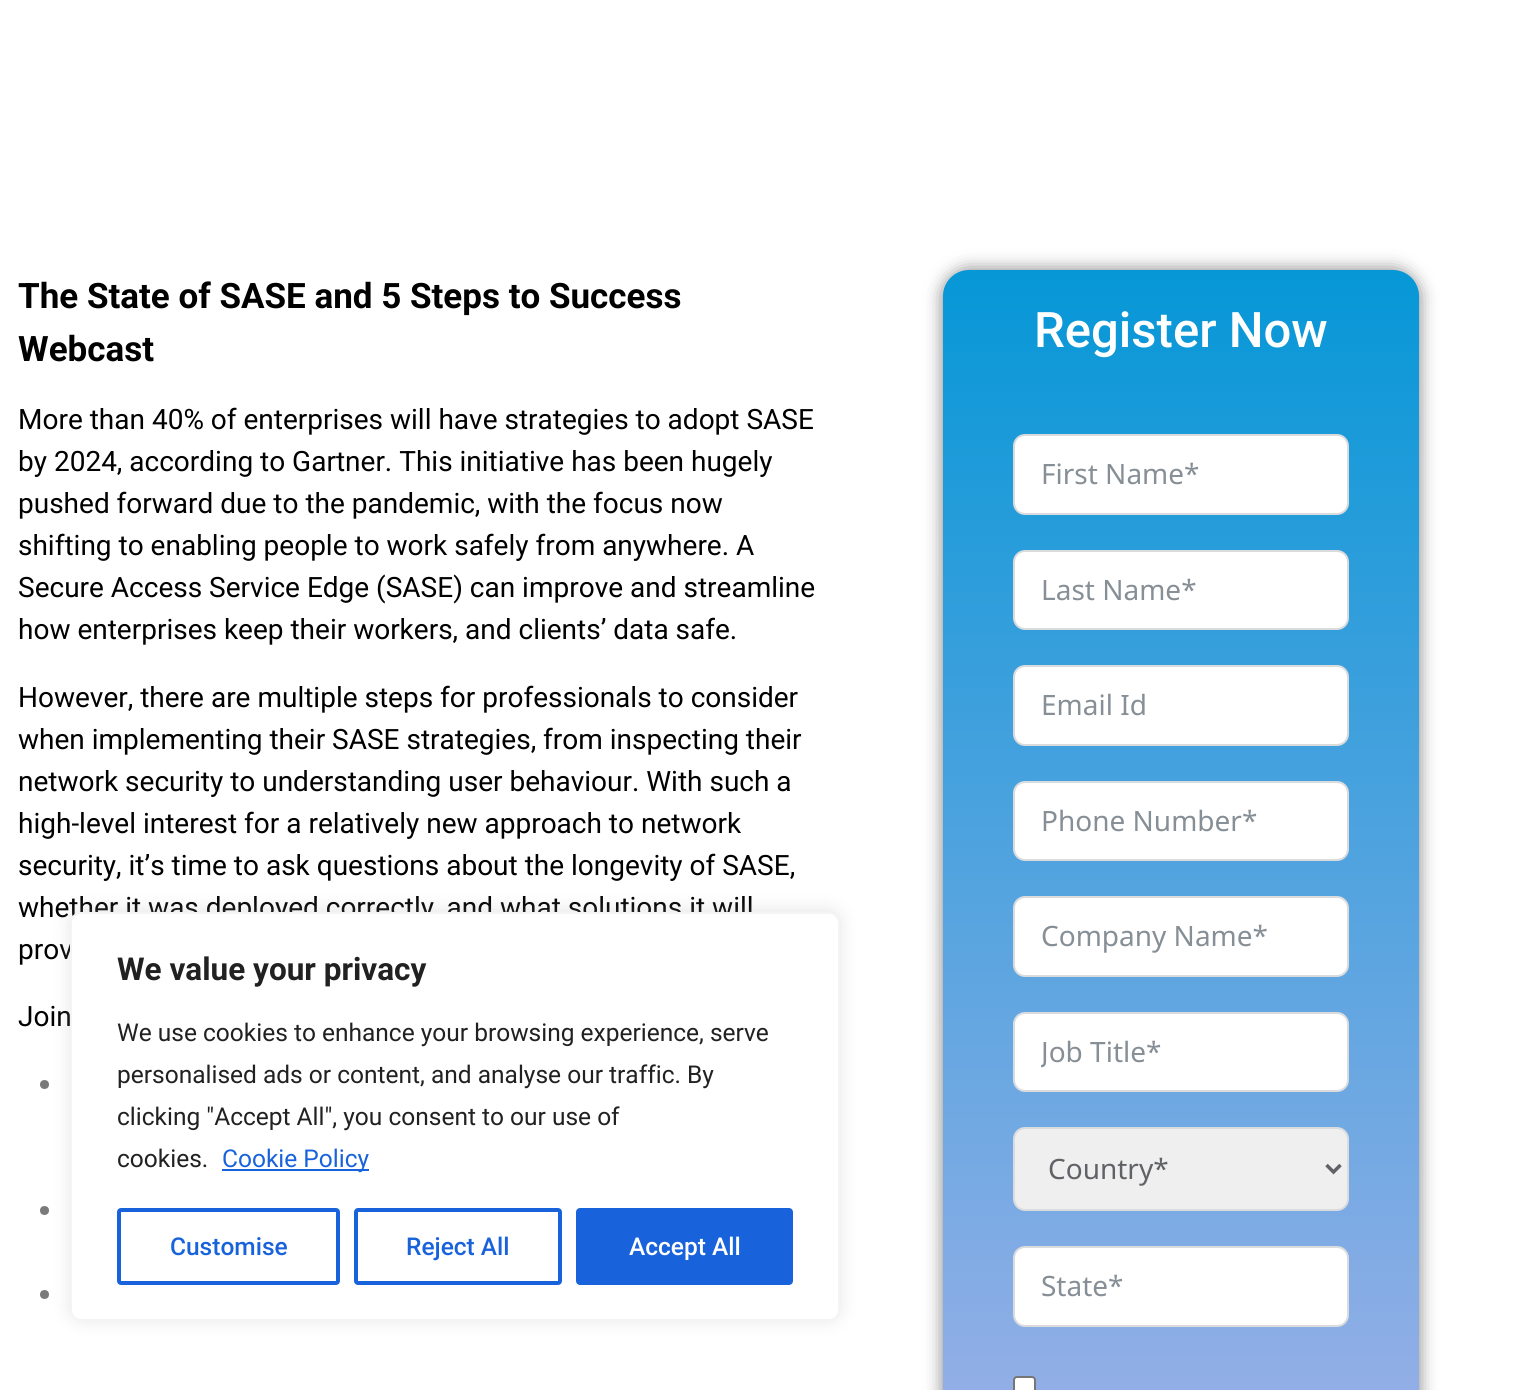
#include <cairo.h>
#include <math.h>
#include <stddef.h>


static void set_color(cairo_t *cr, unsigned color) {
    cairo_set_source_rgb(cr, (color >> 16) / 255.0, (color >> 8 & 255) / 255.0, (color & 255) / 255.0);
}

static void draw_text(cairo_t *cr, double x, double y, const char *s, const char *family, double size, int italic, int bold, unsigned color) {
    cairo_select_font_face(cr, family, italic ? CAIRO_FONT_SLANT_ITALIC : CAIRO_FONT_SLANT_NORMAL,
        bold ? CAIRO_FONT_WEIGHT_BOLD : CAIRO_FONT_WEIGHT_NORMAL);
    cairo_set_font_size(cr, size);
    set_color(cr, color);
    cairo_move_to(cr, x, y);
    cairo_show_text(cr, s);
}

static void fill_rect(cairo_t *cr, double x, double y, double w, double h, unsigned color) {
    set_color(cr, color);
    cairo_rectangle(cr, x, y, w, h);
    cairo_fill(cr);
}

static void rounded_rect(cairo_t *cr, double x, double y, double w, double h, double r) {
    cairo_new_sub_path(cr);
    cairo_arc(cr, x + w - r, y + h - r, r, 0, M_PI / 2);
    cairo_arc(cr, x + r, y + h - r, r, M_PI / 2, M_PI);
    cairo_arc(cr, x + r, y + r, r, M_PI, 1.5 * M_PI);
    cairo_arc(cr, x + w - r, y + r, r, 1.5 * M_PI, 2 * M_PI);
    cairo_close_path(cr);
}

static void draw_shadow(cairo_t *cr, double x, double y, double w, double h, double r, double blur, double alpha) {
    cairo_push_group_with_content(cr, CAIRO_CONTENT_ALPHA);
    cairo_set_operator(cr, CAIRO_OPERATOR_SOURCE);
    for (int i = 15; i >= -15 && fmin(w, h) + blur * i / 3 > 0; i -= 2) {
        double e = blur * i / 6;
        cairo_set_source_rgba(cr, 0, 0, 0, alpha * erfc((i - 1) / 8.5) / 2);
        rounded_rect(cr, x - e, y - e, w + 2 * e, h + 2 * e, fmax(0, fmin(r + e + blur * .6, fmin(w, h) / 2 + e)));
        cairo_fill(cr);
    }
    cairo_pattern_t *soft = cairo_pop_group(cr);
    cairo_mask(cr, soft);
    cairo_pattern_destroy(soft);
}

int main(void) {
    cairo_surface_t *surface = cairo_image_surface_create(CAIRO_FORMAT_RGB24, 1523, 1390);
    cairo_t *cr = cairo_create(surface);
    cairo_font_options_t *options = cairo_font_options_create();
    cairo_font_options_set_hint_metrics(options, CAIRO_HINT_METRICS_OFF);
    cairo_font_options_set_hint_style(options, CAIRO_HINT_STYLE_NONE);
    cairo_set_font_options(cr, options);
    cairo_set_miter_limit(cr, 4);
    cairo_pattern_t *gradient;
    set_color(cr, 0xFFFFFF);
    cairo_paint(cr);
    draw_text(cr, 18, 308, "The State of SASE and 5 Steps to Success", "Roboto", 35, 0, 1, 0x000000);
    draw_text(cr, 18, 361, "Webcast", "Roboto", 35, 0, 1, 0x000000);
    draw_text(cr, 18, 429, "More than 40% of enterprises will have strategies to adopt SASE", "Roboto", 28, 0, 0, 0x000000);
    draw_text(cr, 18, 471, "by 2024, according to Gartner. This initiative has been hugely", "Roboto", 28, 0, 0, 0x000000);
    draw_text(cr, 18, 513, "pushed forward due to the pandemic, with the focus now", "Roboto", 28, 0, 0, 0x000000);
    draw_text(cr, 18, 555, "shifting to enabling people to work safely from anywhere. A", "Roboto", 28, 0, 0, 0x000000);
    draw_text(cr, 18, 597, "Secure Access Service Edge (SASE) can improve and streamline", "Roboto", 28, 0, 0, 0x000000);
    draw_text(cr, 18, 639, "how enterprises keep their workers, and clients’ data safe.", "Roboto", 28, 0, 0, 0x000000);
    draw_text(cr, 18, 707, "However, there are multiple steps for professionals to consider", "Roboto", 28, 0, 0, 0x000000);
    draw_text(cr, 18, 749, "when implementing their SASE strategies, from inspecting their", "Roboto", 28, 0, 0, 0x000000);
    draw_text(cr, 18, 791, "network security to understanding user behaviour. With such a", "Roboto", 28, 0, 0, 0x000000);
    draw_text(cr, 18, 833, "high-level interest for a relatively new approach to network", "Roboto", 28, 0, 0, 0x000000);
    draw_text(cr, 18, 875, "security, it’s time to ask questions about the longevity of SASE,", "Roboto", 28, 0, 0, 0x000000);
    draw_text(cr, 18, 917, "whether it was deployed correctly, and what solutions it will", "Roboto", 28, 0, 0, 0x000000);
    draw_text(cr, 18, 959, "prov", "Roboto", 28, 0, 0, 0x000000);
    draw_text(cr, 18, 1026, "Join", "Roboto", 28, 0, 0, 0x000000);
    set_color(cr, 0x7A7A7A);
    cairo_new_path(cr);
    cairo_arc(cr, 44.5, 1084.5, 4.5, 0, 2 * M_PI);
    cairo_fill(cr);
    cairo_arc(cr, 44.5, 1210.5, 4.5, 0, 2 * M_PI);
    cairo_fill(cr);
    cairo_arc(cr, 44.5, 1294.5, 4.5, 0, 2 * M_PI);
    cairo_fill(cr);
    set_color(cr, 0x000000);
    draw_shadow(cr, 943, 270, 476, 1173, 26, 9, 0.5);
    gradient = cairo_pattern_create_linear(1181, 270, 1181, 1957);
    cairo_pattern_add_color_stop_rgba(gradient, 0, 0.024, 0.592, 0.843, 1);
    cairo_pattern_add_color_stop_rgba(gradient, 1, 0.851, 0.729, 0.933, 1);
    cairo_set_source(cr, gradient);
    cairo_pattern_destroy(gradient);
    rounded_rect(cr, 943, 270, 476, 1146, 26);
    cairo_fill(cr);
    draw_text(cr, 1034, 347, "Register Now", "Roboto Medium", 49, 0, 0, 0xFFFFFF);
    rounded_rect(cr, 1014, 435, 334, 79, 11);
    cairo_fill_preserve(cr);
    set_color(cr, 0xDADBDD);
    cairo_stroke(cr);
    draw_text(cr, 1041, 484, "First Name*", "Noto Sans", 28, 0, 0, 0x868E96);
    set_color(cr, 0xFFFFFF);
    rounded_rect(cr, 1014, 551, 334, 78, 11);
    cairo_fill_preserve(cr);
    set_color(cr, 0xDADBDD);
    cairo_stroke(cr);
    draw_text(cr, 1041, 600, "Last Name*", "Noto Sans", 28, 0, 0, 0x868E96);
    set_color(cr, 0xFFFFFF);
    rounded_rect(cr, 1014, 666, 334, 79, 11);
    cairo_fill_preserve(cr);
    set_color(cr, 0xDADBDD);
    cairo_stroke(cr);
    draw_text(cr, 1041, 715, "Email Id", "Noto Sans", 28, 0, 0, 0x868E96);
    set_color(cr, 0xFFFFFF);
    rounded_rect(cr, 1014, 782, 334, 78, 11);
    cairo_fill_preserve(cr);
    set_color(cr, 0xDADBDD);
    cairo_stroke(cr);
    draw_text(cr, 1041, 831, "Phone Number*", "Noto Sans", 28, 0, 0, 0x868E96);
    set_color(cr, 0xFFFFFF);
    rounded_rect(cr, 1014, 897, 334, 79, 11);
    cairo_fill_preserve(cr);
    set_color(cr, 0xDADBDD);
    cairo_stroke(cr);
    draw_text(cr, 1041, 946, "Company Name*", "Noto Sans", 28, 0, 0, 0x868E96);
    set_color(cr, 0xFFFFFF);
    rounded_rect(cr, 1014, 1013, 334, 78, 11);
    cairo_fill_preserve(cr);
    set_color(cr, 0xDADBDD);
    cairo_stroke(cr);
    cairo_save(cr);
    cairo_rectangle(cr, 1041, 1033, 280, 38);
    cairo_clip(cr);
    draw_text(cr, 1041, 1062, "Job Title*", "Noto Sans", 28, 0, 0, 0x868E96);
    cairo_restore(cr);
    set_color(cr, 0xEFEFEF);
    rounded_rect(cr, 1014, 1128, 334, 82, 11);
    cairo_fill_preserve(cr);
    set_color(cr, 0xDADBDD);
    cairo_stroke(cr);
    cairo_new_path(cr);
    cairo_move_to(cr, 1326.5, 1165);
    cairo_line_to(cr, 1333.5, 1172);
    cairo_line_to(cr, 1340.5, 1165);
    set_color(cr, 0x606266);
    cairo_set_line_width(cr, 3.5);
    cairo_stroke(cr);
    draw_text(cr, 1048, 1179, "Country*", "Noto Sans", 28, 0, 0, 0x606266);
    set_color(cr, 0xFFFFFF);
    rounded_rect(cr, 1014, 1247, 334, 79, 11);
    cairo_fill_preserve(cr);
    set_color(cr, 0xDADBDD);
    cairo_set_line_width(cr, 2);
    cairo_stroke(cr);
    draw_text(cr, 1041, 1296, "State*", "Noto Sans", 28, 0, 0, 0x868E96);
    set_color(cr, 0xFFFFFF);
    rounded_rect(cr, 1014, 1377, 21, 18, 3);
    cairo_fill_preserve(cr);
    set_color(cr, 0x767676);
    cairo_stroke(cr);
    set_color(cr, 0xACABAB);
    draw_shadow(cr, 70, 910, 770, 410, 11, 9, 0.3);
    set_color(cr, 0xFFFFFF);
    rounded_rect(cr, 71, 913, 768, 407, 10);
    cairo_fill_preserve(cr);
    set_color(cr, 0xF4F4F4);
    cairo_stroke(cr);
    draw_text(cr, 117, 980, "We value your privacy", "Roboto", 31.5, 0, 1, 0x212121);
    draw_text(cr, 117, 1041, "We use cookies to enhance your browsing experience, serve", "Roboto", 24.5, 0, 0, 0x212121);
    draw_text(cr, 117, 1083, "personalised ads or content, and analyse our traffic. By", "Roboto", 24.5, 0, 0, 0x212121);
    draw_text(cr, 117, 1125, "clicking \"Accept All\", you consent to our use of", "Roboto", 24.5, 0, 0, 0x212121);
    draw_text(cr, 117, 1167, "cookies.", "Roboto", 24.5, 0, 0, 0x212121);
    fill_rect(cr, 222, 1169, 147, 2, 0x1863DC);
    draw_text(cr, 222, 1167, "Cookie Policy", "Roboto", 24.5, 0, 0, 0x1863DC);
    rounded_rect(cr, 119, 1210, 219, 73, 2);
    cairo_set_line_width(cr, 4);
    cairo_stroke(cr);
    draw_text(cr, 170, 1255, "Customise", "Roboto Medium", 24.5, 0, 0, 0x1863DC);
    rounded_rect(cr, 356, 1210, 204, 73, 2);
    cairo_stroke(cr);
    draw_text(cr, 406, 1255, "Reject All", "Roboto Medium", 24.5, 0, 0, 0x1863DC);
    rounded_rect(cr, 578, 1210, 213, 73, 2);
    cairo_fill_preserve(cr);
    cairo_stroke(cr);
    draw_text(cr, 629, 1255, "Accept All", "Roboto Medium", 24.5, 0, 0, 0xFFFFFF);
    cairo_surface_write_to_png(surface, "output.png");
    cairo_font_options_destroy(options);
    cairo_destroy(cr);
    cairo_surface_destroy(surface);
    return 0;
}
